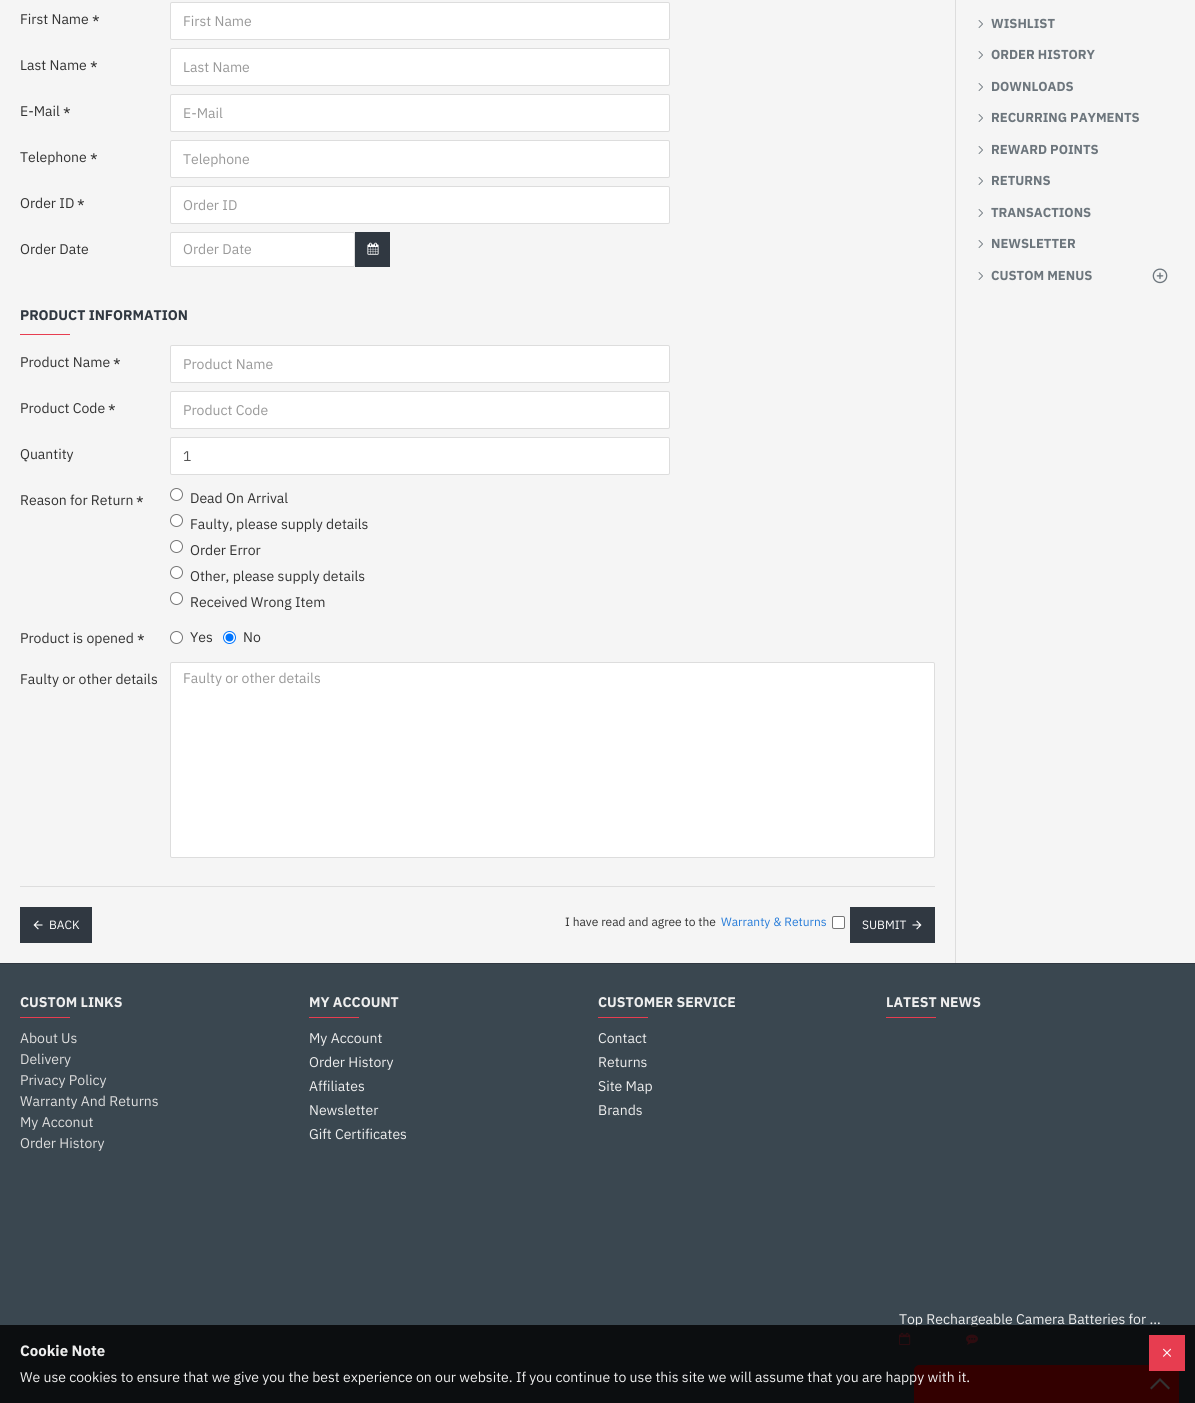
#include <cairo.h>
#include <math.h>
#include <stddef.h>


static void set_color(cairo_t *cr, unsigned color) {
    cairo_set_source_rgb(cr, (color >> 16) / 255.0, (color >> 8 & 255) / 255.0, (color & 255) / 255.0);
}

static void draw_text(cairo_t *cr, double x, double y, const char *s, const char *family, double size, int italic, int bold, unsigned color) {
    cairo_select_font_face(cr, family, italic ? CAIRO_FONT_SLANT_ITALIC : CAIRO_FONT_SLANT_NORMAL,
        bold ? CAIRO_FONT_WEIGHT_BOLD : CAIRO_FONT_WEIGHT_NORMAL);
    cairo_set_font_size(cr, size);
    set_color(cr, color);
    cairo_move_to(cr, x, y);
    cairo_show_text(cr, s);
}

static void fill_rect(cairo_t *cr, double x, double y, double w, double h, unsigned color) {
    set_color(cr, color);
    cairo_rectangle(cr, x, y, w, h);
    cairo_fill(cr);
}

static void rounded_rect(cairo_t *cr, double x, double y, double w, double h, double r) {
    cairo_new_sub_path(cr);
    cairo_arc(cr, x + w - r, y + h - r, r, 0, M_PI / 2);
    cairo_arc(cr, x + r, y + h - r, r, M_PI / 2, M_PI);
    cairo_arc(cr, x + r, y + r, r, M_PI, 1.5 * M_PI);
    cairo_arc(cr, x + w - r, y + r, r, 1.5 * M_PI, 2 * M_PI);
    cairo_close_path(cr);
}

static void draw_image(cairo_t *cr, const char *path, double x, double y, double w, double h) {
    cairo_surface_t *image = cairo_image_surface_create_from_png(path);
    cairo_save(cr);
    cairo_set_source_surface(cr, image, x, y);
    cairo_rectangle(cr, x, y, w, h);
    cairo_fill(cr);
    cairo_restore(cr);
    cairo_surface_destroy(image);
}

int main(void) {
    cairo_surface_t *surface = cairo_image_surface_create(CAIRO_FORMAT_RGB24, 1195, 1403);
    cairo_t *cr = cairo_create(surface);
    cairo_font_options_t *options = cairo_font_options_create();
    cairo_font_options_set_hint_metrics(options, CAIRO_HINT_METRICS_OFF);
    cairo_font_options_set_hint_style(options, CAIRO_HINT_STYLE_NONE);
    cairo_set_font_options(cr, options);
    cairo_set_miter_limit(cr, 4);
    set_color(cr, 0xF5F5F5);
    cairo_paint(cr);
    draw_text(cr, 20, 24, "First Name", "IBM Plex Sans", 14, 0, 0, 0x333333);
    draw_text(cr, 92, 28, "*", "IBM Plex Sans", 17, 0, 0, 0x333333);
    set_color(cr, 0xFFFFFF);
    rounded_rect(cr, 170.5, 2.5, 499, 37, 1.5);
    cairo_fill_preserve(cr);
    set_color(cr, 0xDDDDDD);
    cairo_set_line_width(cr, 1);
    cairo_stroke(cr);
    draw_text(cr, 183, 26, "First Name", "IBM Plex Sans", 14, 0, 0, 0x999999);
    draw_text(cr, 20, 70, "Last Name", "IBM Plex Sans", 14, 0, 0, 0x333333);
    draw_text(cr, 90, 74, "*", "IBM Plex Sans", 17, 0, 0, 0x333333);
    set_color(cr, 0xFFFFFF);
    rounded_rect(cr, 170.5, 48.5, 499, 37, 1.5);
    cairo_fill_preserve(cr);
    set_color(cr, 0xDDDDDD);
    cairo_stroke(cr);
    draw_text(cr, 183, 72, "Last Name", "IBM Plex Sans", 14, 0, 0, 0x999999);
    draw_text(cr, 20, 116, "E-Mail", "IBM Plex Sans", 14, 0, 0, 0x333333);
    draw_text(cr, 63, 120, "*", "IBM Plex Sans", 17, 0, 0, 0x333333);
    set_color(cr, 0xFFFFFF);
    rounded_rect(cr, 170.5, 94.5, 499, 37, 1.5);
    cairo_fill_preserve(cr);
    set_color(cr, 0xDDDDDD);
    cairo_stroke(cr);
    draw_text(cr, 183, 118, "E-Mail", "IBM Plex Sans", 14, 0, 0, 0x999999);
    draw_text(cr, 20, 162, "Telephone", "IBM Plex Sans", 14, 0, 0, 0x333333);
    draw_text(cr, 90, 166, "*", "IBM Plex Sans", 17, 0, 0, 0x333333);
    set_color(cr, 0xFFFFFF);
    rounded_rect(cr, 170.5, 140.5, 499, 37, 1.5);
    cairo_fill_preserve(cr);
    set_color(cr, 0xDDDDDD);
    cairo_stroke(cr);
    draw_text(cr, 183, 164, "Telephone", "IBM Plex Sans", 14, 0, 0, 0x999999);
    draw_text(cr, 20, 208, "Order ID", "IBM Plex Sans", 14, 0, 0, 0x333333);
    draw_text(cr, 77, 212, "*", "IBM Plex Sans", 17, 0, 0, 0x333333);
    set_color(cr, 0xFFFFFF);
    rounded_rect(cr, 170.5, 186.5, 499, 37, 1.5);
    cairo_fill_preserve(cr);
    set_color(cr, 0xDDDDDD);
    cairo_stroke(cr);
    draw_text(cr, 183, 210, "Order ID", "IBM Plex Sans", 14, 0, 0, 0x999999);
    draw_text(cr, 20, 254, "Order Date", "IBM Plex Sans", 14, 0, 0, 0x333333);
    set_color(cr, 0xFFFFFF);
    rounded_rect(cr, 170.5, 232.5, 184, 34, 1.5);
    cairo_fill_preserve(cr);
    set_color(cr, 0xDDDDDD);
    cairo_stroke(cr);
    draw_text(cr, 183, 254, "Order Date", "IBM Plex Sans", 14, 0, 0, 0x999999);
    fill_rect(cr, 355, 232, 35, 35, 0x303841);
    draw_image(cr, "assets/img1.png", 367, 242, 12, 13);
    draw_text(cr, 20, 320, "PRODUCT INFORMATION", "IBM Plex Sans", 14, 0, 1, 0x303841);
    fill_rect(cr, 20, 334, 50, 1, 0xE73D50);
    draw_text(cr, 20, 367, "Product Name", "IBM Plex Sans", 14, 0, 0, 0x333333);
    draw_text(cr, 113, 371, "*", "IBM Plex Sans", 17, 0, 0, 0x333333);
    set_color(cr, 0xFFFFFF);
    rounded_rect(cr, 170.5, 345.5, 499, 37, 1.5);
    cairo_fill_preserve(cr);
    set_color(cr, 0xDDDDDD);
    cairo_stroke(cr);
    draw_text(cr, 183, 369, "Product Name", "IBM Plex Sans", 14, 0, 0, 0x999999);
    draw_text(cr, 20, 413, "Product Code", "IBM Plex Sans", 14, 0, 0, 0x333333);
    draw_text(cr, 108, 417, "*", "IBM Plex Sans", 17, 0, 0, 0x333333);
    set_color(cr, 0xFFFFFF);
    rounded_rect(cr, 170.5, 391.5, 499, 37, 1.5);
    cairo_fill_preserve(cr);
    set_color(cr, 0xDDDDDD);
    cairo_stroke(cr);
    draw_text(cr, 183, 415, "Product Code", "IBM Plex Sans", 14, 0, 0, 0x999999);
    draw_text(cr, 20, 459, "Quantity", "IBM Plex Sans", 14, 0, 0, 0x333333);
    set_color(cr, 0xFFFFFF);
    rounded_rect(cr, 170.5, 437.5, 499, 37, 1.5);
    cairo_fill_preserve(cr);
    set_color(cr, 0xDDDDDD);
    cairo_stroke(cr);
    draw_text(cr, 183, 461, "1", "IBM Plex Sans", 14, 0, 0, 0x555555);
    draw_text(cr, 20, 505, "Reason for Return", "IBM Plex Sans", 14, 0, 0, 0x333333);
    draw_text(cr, 136, 509, "*", "IBM Plex Sans", 17, 0, 0, 0x333333);
    set_color(cr, 0xFFFFFF);
    cairo_new_path(cr);
    cairo_arc(cr, 176.5, 494.5, 6, 0, 2 * M_PI);
    cairo_fill_preserve(cr);
    set_color(cr, 0x767676);
    cairo_stroke(cr);
    draw_text(cr, 190, 503, "Dead On Arrival", "IBM Plex Sans", 14, 0, 0, 0x333333);
    set_color(cr, 0xFFFFFF);
    cairo_new_path(cr);
    cairo_arc(cr, 176.5, 520.5, 6, 0, 2 * M_PI);
    cairo_fill_preserve(cr);
    set_color(cr, 0x767676);
    cairo_stroke(cr);
    draw_text(cr, 190, 529, "Faulty, please supply details", "IBM Plex Sans", 14, 0, 0, 0x333333);
    set_color(cr, 0xFFFFFF);
    cairo_new_path(cr);
    cairo_arc(cr, 176.5, 546.5, 6, 0, 2 * M_PI);
    cairo_fill_preserve(cr);
    set_color(cr, 0x767676);
    cairo_stroke(cr);
    draw_text(cr, 190, 555, "Order Error", "IBM Plex Sans", 14, 0, 0, 0x333333);
    set_color(cr, 0xFFFFFF);
    cairo_new_path(cr);
    cairo_arc(cr, 176.5, 572.5, 6, 0, 2 * M_PI);
    cairo_fill_preserve(cr);
    set_color(cr, 0x767676);
    cairo_stroke(cr);
    draw_text(cr, 190, 581, "Other, please supply details", "IBM Plex Sans", 14, 0, 0, 0x333333);
    set_color(cr, 0xFFFFFF);
    cairo_new_path(cr);
    cairo_arc(cr, 176.5, 598.5, 6, 0, 2 * M_PI);
    cairo_fill_preserve(cr);
    set_color(cr, 0x767676);
    cairo_stroke(cr);
    draw_text(cr, 190, 607, "Received Wrong Item", "IBM Plex Sans", 14, 0, 0, 0x333333);
    draw_text(cr, 20, 643, "Product is opened", "IBM Plex Sans", 14, 0, 0, 0x333333);
    draw_text(cr, 137, 647, "*", "IBM Plex Sans", 17, 0, 0, 0x333333);
    set_color(cr, 0xFFFFFF);
    cairo_new_path(cr);
    cairo_arc(cr, 176.5, 637.5, 6, 0, 2 * M_PI);
    cairo_fill_preserve(cr);
    set_color(cr, 0x767676);
    cairo_stroke(cr);
    draw_text(cr, 190, 642, "Yes", "IBM Plex Sans", 14, 0, 0, 0x333333);
    set_color(cr, 0xFFFFFF);
    cairo_new_path(cr);
    cairo_arc(cr, 229.5, 637.5, 6, 0, 2 * M_PI);
    cairo_fill_preserve(cr);
    set_color(cr, 0x0075FF);
    cairo_stroke(cr);
    cairo_arc(cr, 229.5, 637.5, 4, 0, 2 * M_PI);
    cairo_fill(cr);
    draw_text(cr, 243, 642, "No", "IBM Plex Sans", 14, 0, 0, 0x333333);
    draw_text(cr, 20, 684, "Faulty or other details", "IBM Plex Sans", 14, 0, 0, 0x333333);
    set_color(cr, 0xFFFFFF);
    rounded_rect(cr, 170.5, 662.5, 764, 195, 1.5);
    cairo_fill_preserve(cr);
    set_color(cr, 0xDDDDDD);
    cairo_stroke(cr);
    draw_text(cr, 183, 683, "Faulty or other details", "IBM Plex Sans", 14, 0, 0, 0x999999);
    fill_rect(cr, 20, 886, 915, 1, 0xDDDDDD);
    fill_rect(cr, 20, 907, 72, 36, 0x303841);
    draw_image(cr, "assets/img2.png", 33, 920, 10, 10);
    draw_text(cr, 49, 929, "BACK", "IBM Plex Sans", 12, 0, 0, 0xFFFFFF);
    draw_text(cr, 565, 926, "I have read and agree to the", "IBM Plex Sans", 12, 0, 0, 0x333333);
    draw_text(cr, 721, 926, "Warranty & Returns", "IBM Plex Sans", 12, 0, 0, 0x277CD9);
    set_color(cr, 0xFFFFFF);
    rounded_rect(cr, 832.5, 916.5, 12, 12, 1.5);
    cairo_fill_preserve(cr);
    set_color(cr, 0x767676);
    cairo_stroke(cr);
    fill_rect(cr, 850, 907, 85, 36, 0x303841);
    draw_text(cr, 862, 929, "SUBMIT", "IBM Plex Sans", 12, 0, 0, 0xFFFFFF);
    draw_image(cr, "assets/img3.png", 912, 920, 10, 10);
    fill_rect(cr, 955, 0, 1, 963, 0xDDDDDD);
    draw_image(cr, "assets/img4.png", 978, 20, 5, 8);
    draw_text(cr, 991, 28, "WISHLIST", "IBM Plex Sans", 13, 0, 1, 0x6D767D);
    draw_image(cr, "assets/img4.png", 978, 51, 5, 8);
    draw_text(cr, 991, 59, "ORDER HISTORY", "IBM Plex Sans", 13, 0, 1, 0x6D767D);
    draw_image(cr, "assets/img4.png", 978, 83, 5, 8);
    draw_text(cr, 991, 91, "DOWNLOADS", "IBM Plex Sans", 13, 0, 1, 0x6D767D);
    draw_image(cr, "assets/img4.png", 978, 114, 5, 8);
    draw_text(cr, 991, 122, "RECURRING PAYMENTS", "IBM Plex Sans", 13, 0, 1, 0x6D767D);
    draw_image(cr, "assets/img4.png", 978, 146, 5, 8);
    draw_text(cr, 991, 154, "REWARD POINTS", "IBM Plex Sans", 13, 0, 1, 0x6D767D);
    draw_image(cr, "assets/img4.png", 978, 177, 5, 8);
    draw_text(cr, 991, 185, "RETURNS", "IBM Plex Sans", 13, 0, 1, 0x6D767D);
    draw_image(cr, "assets/img4.png", 978, 209, 5, 8);
    draw_text(cr, 991, 217, "TRANSACTIONS", "IBM Plex Sans", 13, 0, 1, 0x6D767D);
    draw_image(cr, "assets/img4.png", 978, 240, 5, 8);
    draw_text(cr, 991, 248, "NEWSLETTER", "IBM Plex Sans", 13, 0, 1, 0x6D767D);
    draw_image(cr, "assets/img4.png", 978, 272, 5, 8);
    draw_text(cr, 991, 280, "CUSTOM MENUS", "IBM Plex Sans", 13, 0, 1, 0x6D767D);
    draw_image(cr, "assets/img5.png", 1152, 268, 16, 16);
    fill_rect(cr, 0, 964, 1195, 439, 0x3A4750);
    fill_rect(cr, 0, 963, 1195, 1, 0x303841);
    draw_text(cr, 20, 1007, "CUSTOM LINKS", "IBM Plex Sans", 14, 0, 1, 0xEEEEEE);
    fill_rect(cr, 20, 1017, 50, 1, 0xE73D50);
    draw_text(cr, 20, 1043, "About Us", "IBM Plex Sans", 14, 0, 0, 0xDDDDDD);
    draw_text(cr, 20, 1064, "Delivery", "IBM Plex Sans", 14, 0, 0, 0xDDDDDD);
    draw_text(cr, 20, 1085, "Privacy Policy", "IBM Plex Sans", 14, 0, 0, 0xDDDDDD);
    draw_text(cr, 20, 1106, "Warranty And Returns", "IBM Plex Sans", 14, 0, 0, 0xDDDDDD);
    draw_text(cr, 20, 1127, "My Acconut", "IBM Plex Sans", 14, 0, 0, 0xDDDDDD);
    draw_text(cr, 20, 1148, "Order History", "IBM Plex Sans", 14, 0, 0, 0xDDDDDD);
    draw_text(cr, 309, 1007, "MY ACCOUNT", "IBM Plex Sans", 14, 0, 1, 0xEEEEEE);
    fill_rect(cr, 309, 1017, 50, 1, 0xE73D50);
    draw_text(cr, 309, 1043, "My Account", "IBM Plex Sans", 14, 0, 0, 0xEEEEEE);
    draw_text(cr, 309, 1067, "Order History", "IBM Plex Sans", 14, 0, 0, 0xEEEEEE);
    draw_text(cr, 309, 1091, "Affiliates", "IBM Plex Sans", 14, 0, 0, 0xEEEEEE);
    draw_text(cr, 309, 1115, "Newsletter", "IBM Plex Sans", 14, 0, 0, 0xEEEEEE);
    draw_text(cr, 309, 1139, "Gift Certificates", "IBM Plex Sans", 14, 0, 0, 0xEEEEEE);
    draw_text(cr, 598, 1007, "CUSTOMER SERVICE", "IBM Plex Sans", 14, 0, 1, 0xEEEEEE);
    fill_rect(cr, 598, 1017, 50, 1, 0xE73D50);
    draw_text(cr, 598, 1043, "Contact", "IBM Plex Sans", 14, 0, 0, 0xEEEEEE);
    draw_text(cr, 598, 1067, "Returns", "IBM Plex Sans", 14, 0, 0, 0xEEEEEE);
    draw_text(cr, 598, 1091, "Site Map", "IBM Plex Sans", 14, 0, 0, 0xEEEEEE);
    draw_text(cr, 598, 1115, "Brands", "IBM Plex Sans", 14, 0, 0, 0xEEEEEE);
    draw_text(cr, 886, 1007, "LATEST NEWS", "IBM Plex Sans", 14, 0, 1, 0xEEEEEE);
    fill_rect(cr, 886, 1017, 50, 1, 0xE73D50);
    draw_text(cr, 899, 1324, "Top Rechargeable Camera Batteries for …", "IBM Plex Sans", 14, 0, 0, 0xEEEEEE);
    draw_image(cr, "assets/img6.png", 899, 1332, 12, 13);
    draw_image(cr, "assets/img7.png", 966, 1334, 12, 11);
    set_color(cr, 0xFF0000);
    cairo_new_path(cr);
    cairo_move_to(cr, 919, 1366);
    cairo_line_to(cr, 1174, 1366);
    cairo_curve_to(cr, 1176, 1366, 1178, 1368, 1178, 1370);
    cairo_line_to(cr, 1178, 1402);
    cairo_line_to(cr, 915, 1402);
    cairo_line_to(cr, 915, 1370);
    cairo_curve_to(cr, 915, 1368, 917, 1366, 919, 1366);
    cairo_close_path(cr);
    cairo_fill_preserve(cr);
    cairo_set_line_width(cr, 2);
    cairo_stroke(cr);
    set_color(cr, 0xFFFFFF);
    cairo_new_path(cr);
    cairo_move_to(cr, 1160, 1378);
    cairo_line_to(cr, 1170, 1388);
    cairo_line_to(cr, 1168.5, 1389.5);
    cairo_line_to(cr, 1160, 1381);
    cairo_line_to(cr, 1151.5, 1389.5);
    cairo_line_to(cr, 1150, 1388);
    cairo_close_path(cr);
    cairo_fill(cr);
    cairo_set_source_rgba(cr, 0, 0, 0, 0.8);
    cairo_rectangle(cr, 0, 1325, 1195, 78);
    cairo_fill(cr);
    draw_text(cr, 20, 1356, "Cookie Note", "IBM Plex Sans", 15, 0, 1, 0xEEEEEE);
    draw_text(cr, 20, 1382, "We use cookies to ensure that we give you the best experience on our website. If you continue to use this site we will assume that you are happy with it.", "IBM Plex Sans", 14, 0, 0, 0xEEEEEE);
    fill_rect(cr, 1149, 1335, 36, 36, 0xE73D50);
    draw_image(cr, "assets/img8.png", 1163, 1348, 8, 9);
    cairo_surface_write_to_png(surface, "output.png");
    cairo_font_options_destroy(options);
    cairo_destroy(cr);
    cairo_surface_destroy(surface);
    return 0;
}
